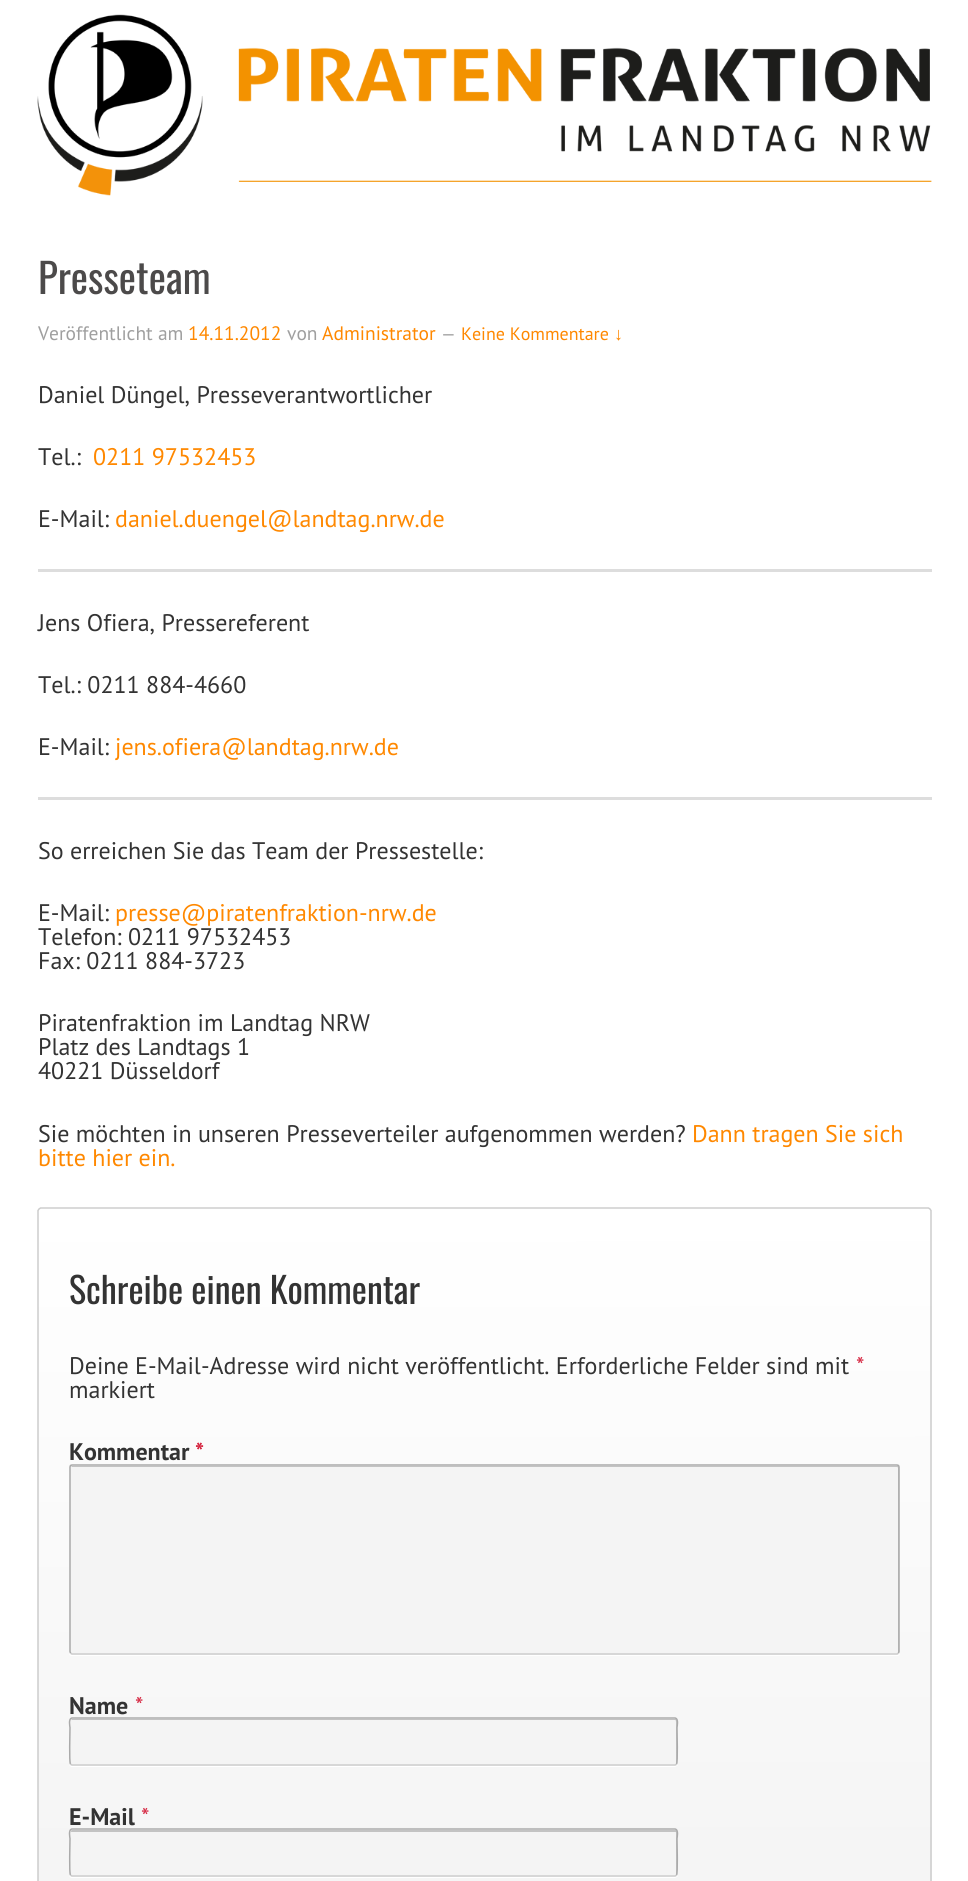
#include <cairo.h>
#include <math.h>
#include <stddef.h>


static void set_color(cairo_t *cr, unsigned color) {
    cairo_set_source_rgb(cr, (color >> 16) / 255.0, (color >> 8 & 255) / 255.0, (color & 255) / 255.0);
}

static void draw_text(cairo_t *cr, double x, double y, const char *s, const char *family, double size, int italic, int bold, unsigned color) {
    cairo_select_font_face(cr, family, italic ? CAIRO_FONT_SLANT_ITALIC : CAIRO_FONT_SLANT_NORMAL,
        bold ? CAIRO_FONT_WEIGHT_BOLD : CAIRO_FONT_WEIGHT_NORMAL);
    cairo_set_font_size(cr, size);
    set_color(cr, color);
    cairo_move_to(cr, x, y);
    cairo_show_text(cr, s);
}

static void fill_rect(cairo_t *cr, double x, double y, double w, double h, unsigned color) {
    set_color(cr, color);
    cairo_rectangle(cr, x, y, w, h);
    cairo_fill(cr);
}

static void rounded_rect(cairo_t *cr, double x, double y, double w, double h, double r) {
    cairo_new_sub_path(cr);
    cairo_arc(cr, x + w - r, y + h - r, r, 0, M_PI / 2);
    cairo_arc(cr, x + r, y + h - r, r, M_PI / 2, M_PI);
    cairo_arc(cr, x + r, y + r, r, M_PI, 1.5 * M_PI);
    cairo_arc(cr, x + w - r, y + r, r, 1.5 * M_PI, 2 * M_PI);
    cairo_close_path(cr);
}

static void draw_image(cairo_t *cr, const char *path, double x, double y, double w, double h) {
    cairo_surface_t *image = cairo_image_surface_create_from_png(path);
    cairo_save(cr);
    cairo_set_source_surface(cr, image, x, y);
    cairo_rectangle(cr, x, y, w, h);
    cairo_fill(cr);
    cairo_restore(cr);
    cairo_surface_destroy(image);
}

int main(void) {
    cairo_surface_t *surface = cairo_image_surface_create(CAIRO_FORMAT_RGB24, 968, 1881);
    cairo_t *cr = cairo_create(surface);
    cairo_font_options_t *options = cairo_font_options_create();
    cairo_font_options_set_hint_metrics(options, CAIRO_HINT_METRICS_OFF);
    cairo_font_options_set_hint_style(options, CAIRO_HINT_STYLE_NONE);
    cairo_set_font_options(cr, options);
    cairo_set_miter_limit(cr, 4);
    cairo_pattern_t *gradient;
    set_color(cr, 0xFFFFFF);
    cairo_paint(cr);
    draw_image(cr, "assets/img1.png", 37, 14, 895, 182);
    draw_text(cr, 38, 294, "Presseteam", "Oswald", 41, 0, 0, 0x4C4A4A);
    draw_text(cr, 38, 340, "Veröffentlicht am", "PT Sans", 19.5, 0, 0, 0x9F9F9F);
    draw_text(cr, 188, 340, "14.11.2012", "PT Sans", 19.5, 0, 0, 0xFF8800);
    draw_text(cr, 287, 340, "von", "PT Sans", 19.5, 0, 0, 0x9F9F9F);
    draw_text(cr, 322, 340, "Administrator", "PT Sans", 19.5, 0, 0, 0xFF8800);
    draw_text(cr, 441, 340, "—", "PT Sans", 18, 0, 0, 0x9F9F9F);
    draw_text(cr, 461, 340, "Keine Kommentare", "PT Sans", 18, 0, 0, 0xFF8800);
    draw_text(cr, 614, 340, "↓", "Liberation Sans", 18, 0, 0, 0xFF8800);
    draw_text(cr, 38, 403, "Daniel Düngel, Presseverantwortlicher", "PT Sans", 24, 0, 0, 0x333333);
    draw_text(cr, 38, 465, "Tel.:", "PT Sans", 24, 0, 0, 0x333333);
    draw_text(cr, 93, 465, "0211 97532453", "PT Sans", 24, 0, 0, 0xFF8800);
    draw_text(cr, 38, 527, "E-Mail:", "PT Sans", 24, 0, 0, 0x333333);
    draw_text(cr, 115, 527, "daniel.duengel@landtag.nrw.de", "PT Sans", 24, 0, 0, 0xFF8800);
    fill_rect(cr, 38, 569, 894, 3, 0xDDDDDD);
    draw_text(cr, 38, 631, "Jens Ofiera, Pressereferent", "PT Sans", 24, 0, 0, 0x333333);
    draw_text(cr, 38, 693, "Tel.: 0211 884-4660", "PT Sans", 24, 0, 0, 0x333333);
    draw_text(cr, 38, 755, "E-Mail:", "PT Sans", 24, 0, 0, 0x333333);
    draw_text(cr, 115, 755, "jens.ofiera@landtag.nrw.de", "PT Sans", 24, 0, 0, 0xFF8800);
    fill_rect(cr, 38, 797, 894, 3, 0xDDDDDD);
    draw_text(cr, 38, 859, "So erreichen Sie das Team der Pressestelle:", "PT Sans", 24, 0, 0, 0x333333);
    draw_text(cr, 38, 921, "E-Mail:", "PT Sans", 24, 0, 0, 0x333333);
    draw_text(cr, 115, 921, "presse@piratenfraktion-nrw.de", "PT Sans", 24, 0, 0, 0xFF8800);
    draw_text(cr, 38, 945, "Telefon: 0211 97532453", "PT Sans", 24, 0, 0, 0x333333);
    draw_text(cr, 38, 969, "Fax: 0211 884-3723", "PT Sans", 24, 0, 0, 0x333333);
    draw_text(cr, 38, 1031, "Piratenfraktion im Landtag NRW", "PT Sans", 24, 0, 0, 0x333333);
    draw_text(cr, 38, 1055, "Platz des Landtags 1", "PT Sans", 24, 0, 0, 0x333333);
    draw_text(cr, 38, 1079, "40221 Düsseldorf", "PT Sans", 24, 0, 0, 0x333333);
    draw_text(cr, 38, 1142, "Sie möchten in unseren Presseverteiler aufgenommen werden?", "PT Sans", 24, 0, 0, 0x333333);
    draw_text(cr, 692, 1142, "Dann tragen Sie sich", "PT Sans", 24, 0, 0, 0xFF8800);
    draw_text(cr, 38, 1166, "bitte hier ein.", "PT Sans", 24, 0, 0, 0xFF8800);
    cairo_save(cr);
    rounded_rect(cr, 38, 1208, 894, 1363, 3);
    cairo_clip(cr);
    gradient = cairo_pattern_create_linear(484, 1209, 485, 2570);
    cairo_pattern_add_color_stop_rgba(gradient, 0, 1, 1, 1, 1);
    cairo_pattern_add_color_stop_rgba(gradient, 1, 0.918, 0.918, 0.918, 1);
    cairo_set_source(cr, gradient);
    cairo_pattern_destroy(gradient);
    cairo_rectangle(cr, 38, 1209, 894, 672);
    cairo_fill(cr);
    cairo_restore(cr);
    cairo_new_path(cr);
    cairo_move_to(cr, 39, 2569.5);
    cairo_line_to(cr, 38, 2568);
    cairo_line_to(cr, 38, 1210.5);
    cairo_line_to(cr, 39, 1209);
    cairo_line_to(cr, 40.5, 1208);
    cairo_line_to(cr, 928.5, 1208);
    cairo_line_to(cr, 930, 1209);
    cairo_line_to(cr, 931, 1210.5);
    cairo_line_to(cr, 931, 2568);
    cairo_line_to(cr, 930, 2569.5);
    set_color(cr, 0xCCCCCC);
    cairo_set_line_width(cr, 1.5);
    cairo_stroke(cr);
    draw_text(cr, 69, 1304, "Schreibe einen Kommentar", "Oswald", 36, 0, 0, 0x333333);
    draw_text(cr, 69, 1374, "Deine E-Mail-Adresse wird nicht veröffentlicht. Erforderliche Felder sind mit", "PT Sans", 24, 0, 0, 0x333333);
    draw_text(cr, 856, 1374, "*", "PT Sans", 24, 0, 0, 0xD5243F);
    draw_text(cr, 69, 1398, "markiert", "PT Sans", 24, 0, 0, 0x333333);
    draw_text(cr, 69, 1460, "Kommentar", "PT Sans", 24, 0, 1, 0x333333);
    draw_text(cr, 195, 1460, "*", "PT Sans", 24, 0, 1, 0xD5243F);
    set_color(cr, 0xFFFFFF);
    cairo_new_path(cr);
    cairo_move_to(cr, 69, 1652);
    cairo_line_to(cr, 69, 1653);
    cairo_curve_to(cr, 69, 1655, 70, 1656, 72, 1656);
    cairo_line_to(cr, 897, 1656);
    cairo_curve_to(cr, 899, 1656, 900, 1655, 900, 1653);
    cairo_line_to(cr, 900, 1652);
    cairo_curve_to(cr, 900, 1653, 899, 1654, 897, 1654);
    cairo_line_to(cr, 72, 1654);
    cairo_curve_to(cr, 70, 1654, 69, 1653, 69, 1652);
    cairo_close_path(cr);
    cairo_fill(cr);
    set_color(cr, 0xF4F4F4);
    rounded_rect(cr, 69, 1464, 831, 191, 3);
    cairo_fill(cr);
    set_color(cr, 0xC3C3C3);
    cairo_new_path(cr);
    cairo_move_to(cr, 72, 1467);
    cairo_line_to(cr, 897, 1467);
    cairo_curve_to(cr, 898, 1467, 898, 1468, 898, 1468);
    cairo_line_to(cr, 898, 1653);
    cairo_curve_to(cr, 899, 1653, 899, 1652, 899, 1652);
    cairo_line_to(cr, 899, 1468);
    cairo_curve_to(cr, 899, 1467, 898, 1466, 898, 1466);
    cairo_line_to(cr, 72, 1466);
    cairo_curve_to(cr, 72, 1466, 71, 1467, 71, 1467);
    cairo_close_path(cr);
    cairo_fill(cr);
    cairo_new_path(cr);
    cairo_move_to(cr, 898.5, 1653);
    cairo_line_to(cr, 897, 1654);
    cairo_line_to(cr, 72, 1654);
    cairo_line_to(cr, 70.5, 1653);
    set_color(cr, 0xCCCCCC);
    cairo_stroke(cr);
    cairo_new_path(cr);
    cairo_move_to(cr, 70.5, 1653);
    cairo_line_to(cr, 70, 1651.5);
    cairo_line_to(cr, 70, 1467);
    cairo_line_to(cr, 70.5, 1465.5);
    cairo_line_to(cr, 72, 1465);
    cairo_line_to(cr, 897, 1465);
    cairo_line_to(cr, 898.5, 1465.5);
    cairo_line_to(cr, 899, 1467);
    cairo_line_to(cr, 899, 1651.5);
    cairo_line_to(cr, 898.5, 1653);
    set_color(cr, 0xAAAAAA);
    cairo_stroke(cr);
    draw_text(cr, 69, 1714, "Name", "PT Sans", 24, 0, 1, 0x333333);
    draw_text(cr, 135, 1714, "*", "PT Sans", 24, 0, 0, 0xD5243F);
    set_color(cr, 0xFFFFFF);
    cairo_new_path(cr);
    cairo_move_to(cr, 69, 1762);
    cairo_line_to(cr, 69, 1765);
    cairo_line_to(cr, 71, 1767);
    cairo_line_to(cr, 675, 1767);
    cairo_line_to(cr, 677, 1766);
    cairo_curve_to(cr, 678, 1766, 678, 1764, 678, 1762);
    cairo_curve_to(cr, 678, 1764, 677, 1766, 675, 1766);
    cairo_line_to(cr, 72, 1766);
    cairo_curve_to(cr, 70, 1766, 69, 1764, 69, 1762);
    cairo_close_path(cr);
    cairo_fill(cr);
    set_color(cr, 0xF4F4F4);
    rounded_rect(cr, 69, 1718, 609, 48, 3);
    cairo_fill(cr);
    set_color(cr, 0xC3C3C3);
    cairo_new_path(cr);
    cairo_move_to(cr, 72, 1720);
    cairo_line_to(cr, 675, 1720);
    cairo_curve_to(cr, 676, 1720, 676, 1721, 676, 1722);
    cairo_line_to(cr, 676, 1764);
    cairo_curve_to(cr, 677, 1764, 677, 1763, 677, 1762);
    cairo_line_to(cr, 677, 1720);
    cairo_curve_to(cr, 677, 1720, 676, 1719, 676, 1719);
    cairo_line_to(cr, 72, 1719);
    cairo_curve_to(cr, 72, 1719, 71, 1720, 71, 1720);
    cairo_close_path(cr);
    cairo_fill(cr);
    cairo_new_path(cr);
    cairo_move_to(cr, 676.5, 1764);
    cairo_line_to(cr, 675, 1765);
    cairo_line_to(cr, 72, 1765);
    cairo_line_to(cr, 70.5, 1764);
    set_color(cr, 0xCCCCCC);
    cairo_stroke(cr);
    cairo_new_path(cr);
    cairo_move_to(cr, 70.5, 1764);
    cairo_curve_to(cr, 69, 1762.5, 70, 1732, 70, 1727.5);
    cairo_curve_to(cr, 70, 1727, 68, 1718.5, 72, 1718);
    cairo_line_to(cr, 675, 1718);
    cairo_curve_to(cr, 679, 1718.5, 677, 1727, 677, 1727.5);
    cairo_curve_to(cr, 677, 1732, 678, 1762.5, 676.5, 1764);
    set_color(cr, 0xAAAAAA);
    cairo_stroke(cr);
    draw_text(cr, 69, 1825, "E-Mail", "PT Sans", 24, 0, 1, 0x333333);
    draw_text(cr, 141, 1825, "*", "PT Sans", 24, 0, 0, 0xD5243F);
    set_color(cr, 0xFFFFFF);
    cairo_new_path(cr);
    cairo_move_to(cr, 69, 1874);
    cairo_line_to(cr, 69, 1876);
    cairo_line_to(cr, 71, 1878);
    cairo_line_to(cr, 675, 1878);
    cairo_line_to(cr, 677, 1877);
    cairo_curve_to(cr, 678, 1877, 678, 1875, 678, 1874);
    cairo_curve_to(cr, 678, 1875, 677, 1876, 675, 1876);
    cairo_line_to(cr, 72, 1876);
    cairo_curve_to(cr, 70, 1876, 69, 1875, 69, 1874);
    cairo_close_path(cr);
    cairo_fill(cr);
    set_color(cr, 0xF4F4F4);
    rounded_rect(cr, 69, 1829, 609, 48, 3);
    cairo_fill(cr);
    set_color(cr, 0xC3C3C3);
    cairo_new_path(cr);
    cairo_move_to(cr, 72, 1832);
    cairo_line_to(cr, 675, 1832);
    cairo_curve_to(cr, 676, 1832, 676, 1832, 676, 1833);
    cairo_line_to(cr, 676, 1875);
    cairo_line_to(cr, 677, 1874);
    cairo_line_to(cr, 677, 1831);
    cairo_line_to(cr, 676, 1830);
    cairo_line_to(cr, 72, 1830);
    cairo_curve_to(cr, 71, 1830, 71, 1831, 71, 1832);
    cairo_close_path(cr);
    cairo_fill(cr);
    cairo_new_path(cr);
    cairo_move_to(cr, 676.5, 1875);
    cairo_line_to(cr, 675, 1876);
    cairo_line_to(cr, 72, 1876);
    cairo_line_to(cr, 70.5, 1875);
    set_color(cr, 0xCCCCCC);
    cairo_stroke(cr);
    cairo_new_path(cr);
    cairo_move_to(cr, 70.5, 1875);
    cairo_curve_to(cr, 69, 1873.5, 70, 1843, 70, 1838.5);
    cairo_curve_to(cr, 70, 1838, 68, 1829.5, 72, 1829);
    cairo_line_to(cr, 675, 1829);
    cairo_curve_to(cr, 679, 1829.5, 677, 1838, 677, 1838.5);
    cairo_curve_to(cr, 677, 1843, 678, 1873.5, 676.5, 1875);
    set_color(cr, 0xAAAAAA);
    cairo_stroke(cr);
    cairo_surface_write_to_png(surface, "output.png");
    cairo_font_options_destroy(options);
    cairo_destroy(cr);
    cairo_surface_destroy(surface);
    return 0;
}
